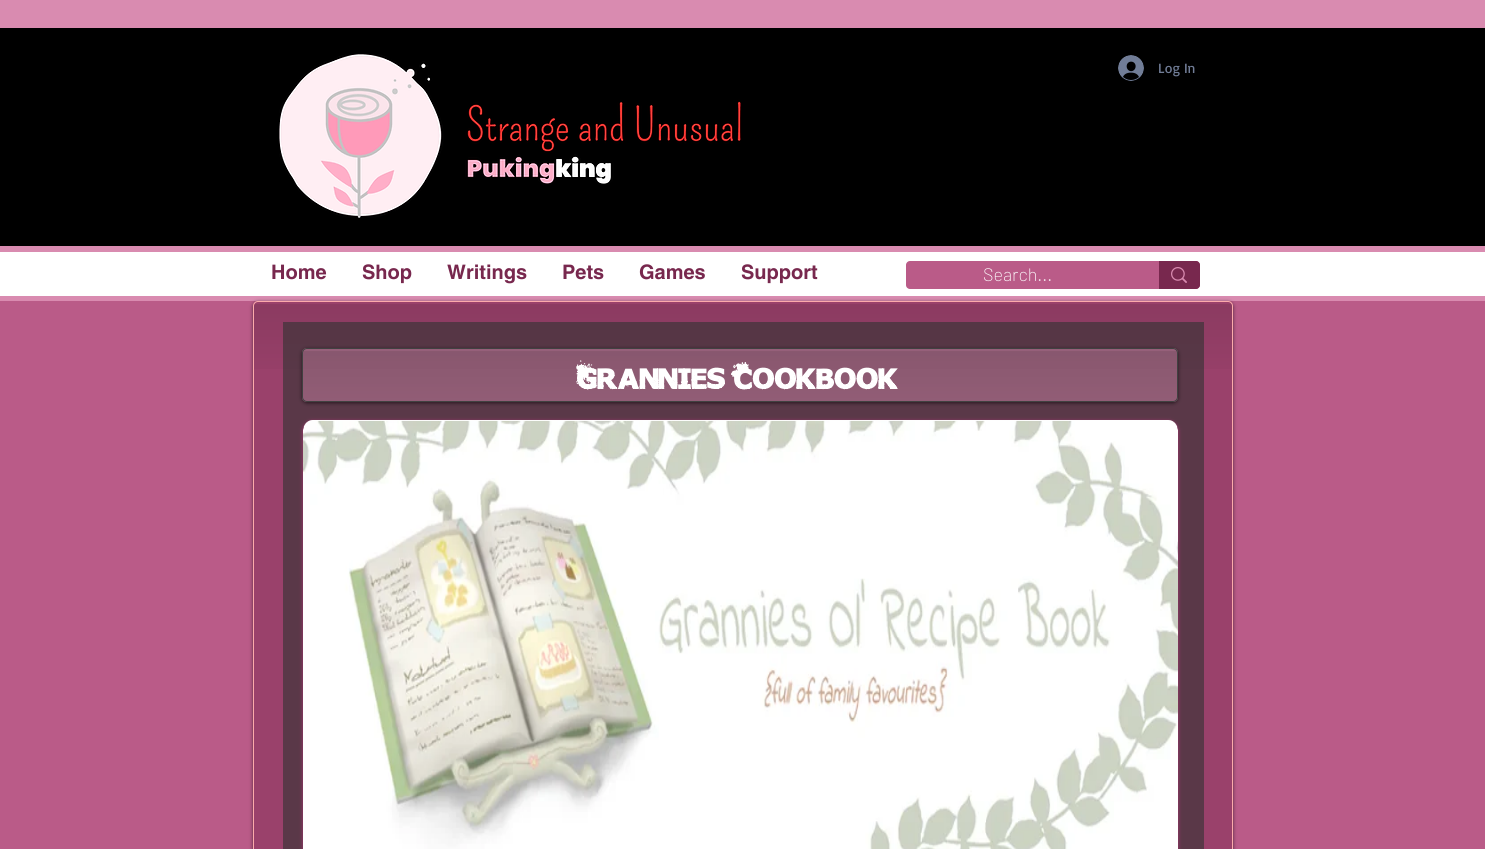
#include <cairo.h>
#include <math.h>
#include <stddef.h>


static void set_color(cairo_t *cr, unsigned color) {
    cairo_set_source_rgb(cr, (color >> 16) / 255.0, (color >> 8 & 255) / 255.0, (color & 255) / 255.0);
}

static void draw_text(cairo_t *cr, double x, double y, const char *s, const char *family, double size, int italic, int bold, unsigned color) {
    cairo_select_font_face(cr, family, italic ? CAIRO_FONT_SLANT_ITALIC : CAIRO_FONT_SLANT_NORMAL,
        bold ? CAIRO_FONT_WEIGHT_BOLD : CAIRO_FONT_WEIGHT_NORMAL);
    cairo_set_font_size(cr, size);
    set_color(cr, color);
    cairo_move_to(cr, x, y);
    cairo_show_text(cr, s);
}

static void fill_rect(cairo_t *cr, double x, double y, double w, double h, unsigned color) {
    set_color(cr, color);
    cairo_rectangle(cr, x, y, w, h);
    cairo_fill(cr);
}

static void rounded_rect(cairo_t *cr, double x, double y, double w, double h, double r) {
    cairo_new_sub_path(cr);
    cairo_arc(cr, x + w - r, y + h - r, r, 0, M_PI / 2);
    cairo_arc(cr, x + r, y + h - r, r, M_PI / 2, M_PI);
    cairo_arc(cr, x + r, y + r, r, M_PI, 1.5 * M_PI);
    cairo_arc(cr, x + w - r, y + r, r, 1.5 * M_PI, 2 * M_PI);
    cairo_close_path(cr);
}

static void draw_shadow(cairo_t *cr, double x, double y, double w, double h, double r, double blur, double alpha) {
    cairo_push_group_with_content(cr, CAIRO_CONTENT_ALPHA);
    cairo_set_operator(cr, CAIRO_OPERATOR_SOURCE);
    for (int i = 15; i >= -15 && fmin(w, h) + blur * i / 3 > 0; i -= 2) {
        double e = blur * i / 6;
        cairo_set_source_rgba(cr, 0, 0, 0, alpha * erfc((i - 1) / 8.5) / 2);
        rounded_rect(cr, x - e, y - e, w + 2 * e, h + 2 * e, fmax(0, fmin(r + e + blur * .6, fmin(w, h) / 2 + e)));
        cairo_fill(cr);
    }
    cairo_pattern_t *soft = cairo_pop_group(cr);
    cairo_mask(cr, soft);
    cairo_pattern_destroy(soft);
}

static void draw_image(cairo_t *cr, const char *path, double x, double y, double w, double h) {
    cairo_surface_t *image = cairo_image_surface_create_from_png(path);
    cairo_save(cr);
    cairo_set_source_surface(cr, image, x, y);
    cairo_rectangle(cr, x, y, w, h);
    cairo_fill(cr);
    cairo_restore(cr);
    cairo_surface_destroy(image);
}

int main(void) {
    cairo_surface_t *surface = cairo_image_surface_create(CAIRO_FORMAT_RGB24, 1485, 849);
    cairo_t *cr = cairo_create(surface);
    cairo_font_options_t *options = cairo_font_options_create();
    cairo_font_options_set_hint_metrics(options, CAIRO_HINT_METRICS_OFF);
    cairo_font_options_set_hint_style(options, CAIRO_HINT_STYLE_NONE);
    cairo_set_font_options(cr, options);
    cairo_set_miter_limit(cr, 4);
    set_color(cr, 0xBA5B88);
    cairo_paint(cr);
    fill_rect(cr, 0, 0, 1485, 301, 0xD98BB0);
    fill_rect(cr, 0, 28, 1485, 218, 0x000000);
    draw_image(cr, "assets/img1.png", 279, 54, 462, 164);
    draw_image(cr, "assets/img2.png", 1118, 55, 26, 26);
    draw_text(cr, 1158, 73, "Log In", "Basic", 14, 0, 0, 0x717D97);
    fill_rect(cr, 0, 252, 1485, 44, 0xFFFFFF);
    draw_text(cr, 271, 279, "Home", "helvetica", 20, 0, 1, 0x78284E);
    draw_text(cr, 362, 279, "Shop", "helvetica", 20, 0, 1, 0x78284E);
    draw_text(cr, 447, 279, "Writings", "helvetica", 20, 0, 1, 0x78284E);
    draw_text(cr, 562, 279, "Pets", "helvetica", 20, 0, 1, 0x78284E);
    draw_text(cr, 639, 279, "Games", "helvetica", 20, 0, 1, 0x78284E);
    draw_text(cr, 741, 279, "Support", "helvetica", 20, 0, 1, 0x78284E);
    set_color(cr, 0xBA5B88);
    rounded_rect(cr, 906, 261, 294, 28, 4);
    cairo_fill(cr);
    draw_text(cr, 983, 281, "Search...", "Barlow ExtraLight", 18, 0, 0, 0xFFFFFF);
    set_color(cr, 0x78284E);
    cairo_new_path(cr);
    cairo_move_to(cr, 1159, 261);
    cairo_line_to(cr, 1196, 261);
    cairo_curve_to(cr, 1198, 261, 1200, 263, 1200, 265);
    cairo_line_to(cr, 1200, 285);
    cairo_curve_to(cr, 1200, 287, 1198, 289, 1196, 289);
    cairo_line_to(cr, 1159, 289);
    cairo_close_path(cr);
    cairo_fill(cr);
    draw_image(cr, "assets/img3.png", 1171, 267, 16, 16);
    cairo_save(cr);
    cairo_set_fill_rule(cr, CAIRO_FILL_RULE_EVEN_ODD);
    cairo_new_path(cr);
    cairo_move_to(cr, 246, 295);
    cairo_line_to(cr, 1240, 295);
    cairo_line_to(cr, 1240, 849);
    cairo_line_to(cr, 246, 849);
    cairo_close_path(cr);
    cairo_move_to(cr, 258, 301);
    cairo_line_to(cr, 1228, 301);
    cairo_curve_to(cr, 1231, 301, 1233, 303, 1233, 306);
    cairo_line_to(cr, 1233, 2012);
    cairo_curve_to(cr, 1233, 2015, 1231, 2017, 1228, 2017);
    cairo_line_to(cr, 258, 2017);
    cairo_curve_to(cr, 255, 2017, 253, 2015, 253, 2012);
    cairo_line_to(cr, 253, 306);
    cairo_curve_to(cr, 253, 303, 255, 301, 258, 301);
    cairo_close_path(cr);
    cairo_clip(cr);
    set_color(cr, 0x000000);
    draw_shadow(cr, 253, 302, 980, 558, 5, 2, 0.6);
    cairo_restore(cr);
    cairo_set_source_rgba(cr, 0.471, 0.157, 0.306, 0.49);
    rounded_rect(cr, 253, 301, 980, 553, 5);
    cairo_fill(cr);
    draw_image(cr, "assets/img4.png", 253, 304, 980, 65);
    rounded_rect(cr, 253.5, 301.5, 979, 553, 4.5);
    set_color(cr, 0xFCABAB);
    cairo_set_line_width(cr, 1);
    cairo_stroke(cr);
    cairo_set_source_rgba(cr, 0.196, 0.196, 0.196, 0.62);
    cairo_rectangle(cr, 283, 322, 921, 527);
    cairo_fill(cr);
    cairo_save(cr);
    cairo_set_fill_rule(cr, CAIRO_FILL_RULE_EVEN_ODD);
    cairo_new_path(cr);
    cairo_move_to(cr, 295, 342);
    cairo_line_to(cr, 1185, 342);
    cairo_line_to(cr, 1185, 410);
    cairo_line_to(cr, 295, 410);
    cairo_close_path(cr);
    cairo_move_to(cr, 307, 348);
    cairo_line_to(cr, 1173, 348);
    cairo_curve_to(cr, 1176, 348, 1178, 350, 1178, 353);
    cairo_line_to(cr, 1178, 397);
    cairo_curve_to(cr, 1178, 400, 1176, 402, 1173, 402);
    cairo_line_to(cr, 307, 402);
    cairo_curve_to(cr, 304, 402, 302, 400, 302, 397);
    cairo_line_to(cr, 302, 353);
    cairo_curve_to(cr, 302, 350, 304, 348, 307, 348);
    cairo_close_path(cr);
    cairo_clip(cr);
    set_color(cr, 0x000000);
    draw_shadow(cr, 302, 349, 876, 54, 5, 2, 0.6);
    cairo_restore(cr);
    cairo_set_source_rgba(cr, 0.851, 0.545, 0.69, 0.49);
    rounded_rect(cr, 302, 348, 876, 54, 5);
    cairo_fill(cr);
    draw_image(cr, "assets/img5.png", 302, 351, 876, 51);
    rounded_rect(cr, 302.5, 348.5, 875, 53, 4.5);
    set_color(cr, 0x414141);
    cairo_stroke(cr);
    draw_text(cr, 577, 389, "Grannies Cookbook", "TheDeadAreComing", 34, 0, 1, 0xFFFFFF);
    set_color(cr, 0xE43292);
    draw_shadow(cr, 303, 421, 875, 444, 10, 2, 0.6);
    draw_image(cr, "assets/img6.png", 303, 420, 875, 429);
    cairo_set_source_rgba(cr, 1, 1, 1, 0.92);
    cairo_new_path(cr);
    cairo_move_to(cr, 313, 421);
    cairo_curve_to(cr, 307, 421, 303, 425, 303, 431);
    cairo_curve_to(cr, 303, 425, 307, 420, 313, 420);
    cairo_line_to(cr, 1168, 420);
    cairo_curve_to(cr, 1174, 420, 1178, 425, 1178, 431);
    cairo_curve_to(cr, 1178, 425, 1174, 421, 1168, 421);
    cairo_close_path(cr);
    cairo_fill(cr);
    cairo_surface_write_to_png(surface, "output.png");
    cairo_font_options_destroy(options);
    cairo_destroy(cr);
    cairo_surface_destroy(surface);
    return 0;
}
